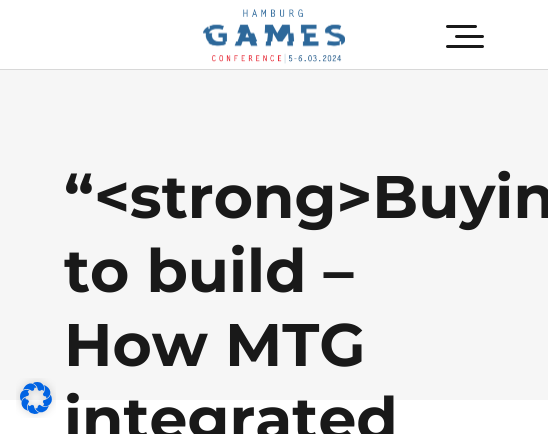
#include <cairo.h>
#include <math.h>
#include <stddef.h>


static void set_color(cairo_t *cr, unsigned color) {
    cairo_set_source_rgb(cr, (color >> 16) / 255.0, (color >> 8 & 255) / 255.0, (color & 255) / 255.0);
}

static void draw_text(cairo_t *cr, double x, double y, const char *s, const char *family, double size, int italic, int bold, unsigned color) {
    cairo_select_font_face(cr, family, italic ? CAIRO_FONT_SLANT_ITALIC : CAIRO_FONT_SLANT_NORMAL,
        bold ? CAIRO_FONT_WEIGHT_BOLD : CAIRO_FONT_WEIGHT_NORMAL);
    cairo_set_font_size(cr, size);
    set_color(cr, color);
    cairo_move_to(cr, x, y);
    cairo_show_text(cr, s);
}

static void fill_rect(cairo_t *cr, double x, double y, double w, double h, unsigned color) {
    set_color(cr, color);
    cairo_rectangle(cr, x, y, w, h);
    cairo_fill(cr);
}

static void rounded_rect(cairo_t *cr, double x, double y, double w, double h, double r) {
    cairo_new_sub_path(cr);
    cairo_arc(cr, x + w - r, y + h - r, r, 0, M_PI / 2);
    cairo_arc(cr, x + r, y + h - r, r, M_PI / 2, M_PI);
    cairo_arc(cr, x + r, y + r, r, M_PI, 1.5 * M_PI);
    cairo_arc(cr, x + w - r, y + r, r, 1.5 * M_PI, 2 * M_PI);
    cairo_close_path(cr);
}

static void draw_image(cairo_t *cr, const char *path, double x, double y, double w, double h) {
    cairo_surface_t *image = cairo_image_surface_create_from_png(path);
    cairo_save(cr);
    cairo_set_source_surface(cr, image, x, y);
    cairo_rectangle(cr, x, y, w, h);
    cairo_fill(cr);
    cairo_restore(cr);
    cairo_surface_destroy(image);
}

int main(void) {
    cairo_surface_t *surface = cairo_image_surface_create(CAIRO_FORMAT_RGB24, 548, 434);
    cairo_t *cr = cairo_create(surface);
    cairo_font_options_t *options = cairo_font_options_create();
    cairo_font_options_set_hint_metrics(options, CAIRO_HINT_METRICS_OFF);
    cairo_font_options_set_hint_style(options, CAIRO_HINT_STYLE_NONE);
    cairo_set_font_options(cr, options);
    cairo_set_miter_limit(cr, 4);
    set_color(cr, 0xFFFFFF);
    cairo_paint(cr);
    fill_rect(cr, 0, 70, 548, 330, 0xF6F6F6);
    draw_image(cr, "assets/img1.png", 16, 378, 40, 40);
    fill_rect(cr, 0, 69, 548, 1, 0xD8D8D8);
    draw_image(cr, "assets/img2.png", 203, 9, 142, 55);
    set_color(cr, 0x191919);
    rounded_rect(cr, 446, 25, 31, 3, 1.5);
    cairo_fill(cr);
    rounded_rect(cr, 455, 35, 29, 3, 1.5);
    cairo_fill(cr);
    rounded_rect(cr, 446, 45, 38, 3, 1.5);
    cairo_fill(cr);
    draw_text(cr, 64, 218, "“<strong>Buyin", "Montserrat", 60, 0, 1, 0x191919);
    draw_text(cr, 64, 292, "to build –", "Montserrat", 60, 0, 1, 0x191919);
    draw_text(cr, 64, 366, "How MTG", "Montserrat", 60, 0, 1, 0x191919);
    draw_text(cr, 64, 440, "integrated", "Montserrat", 60, 0, 1, 0x191919);
    cairo_surface_write_to_png(surface, "output.png");
    cairo_font_options_destroy(options);
    cairo_destroy(cr);
    cairo_surface_destroy(surface);
    return 0;
}
